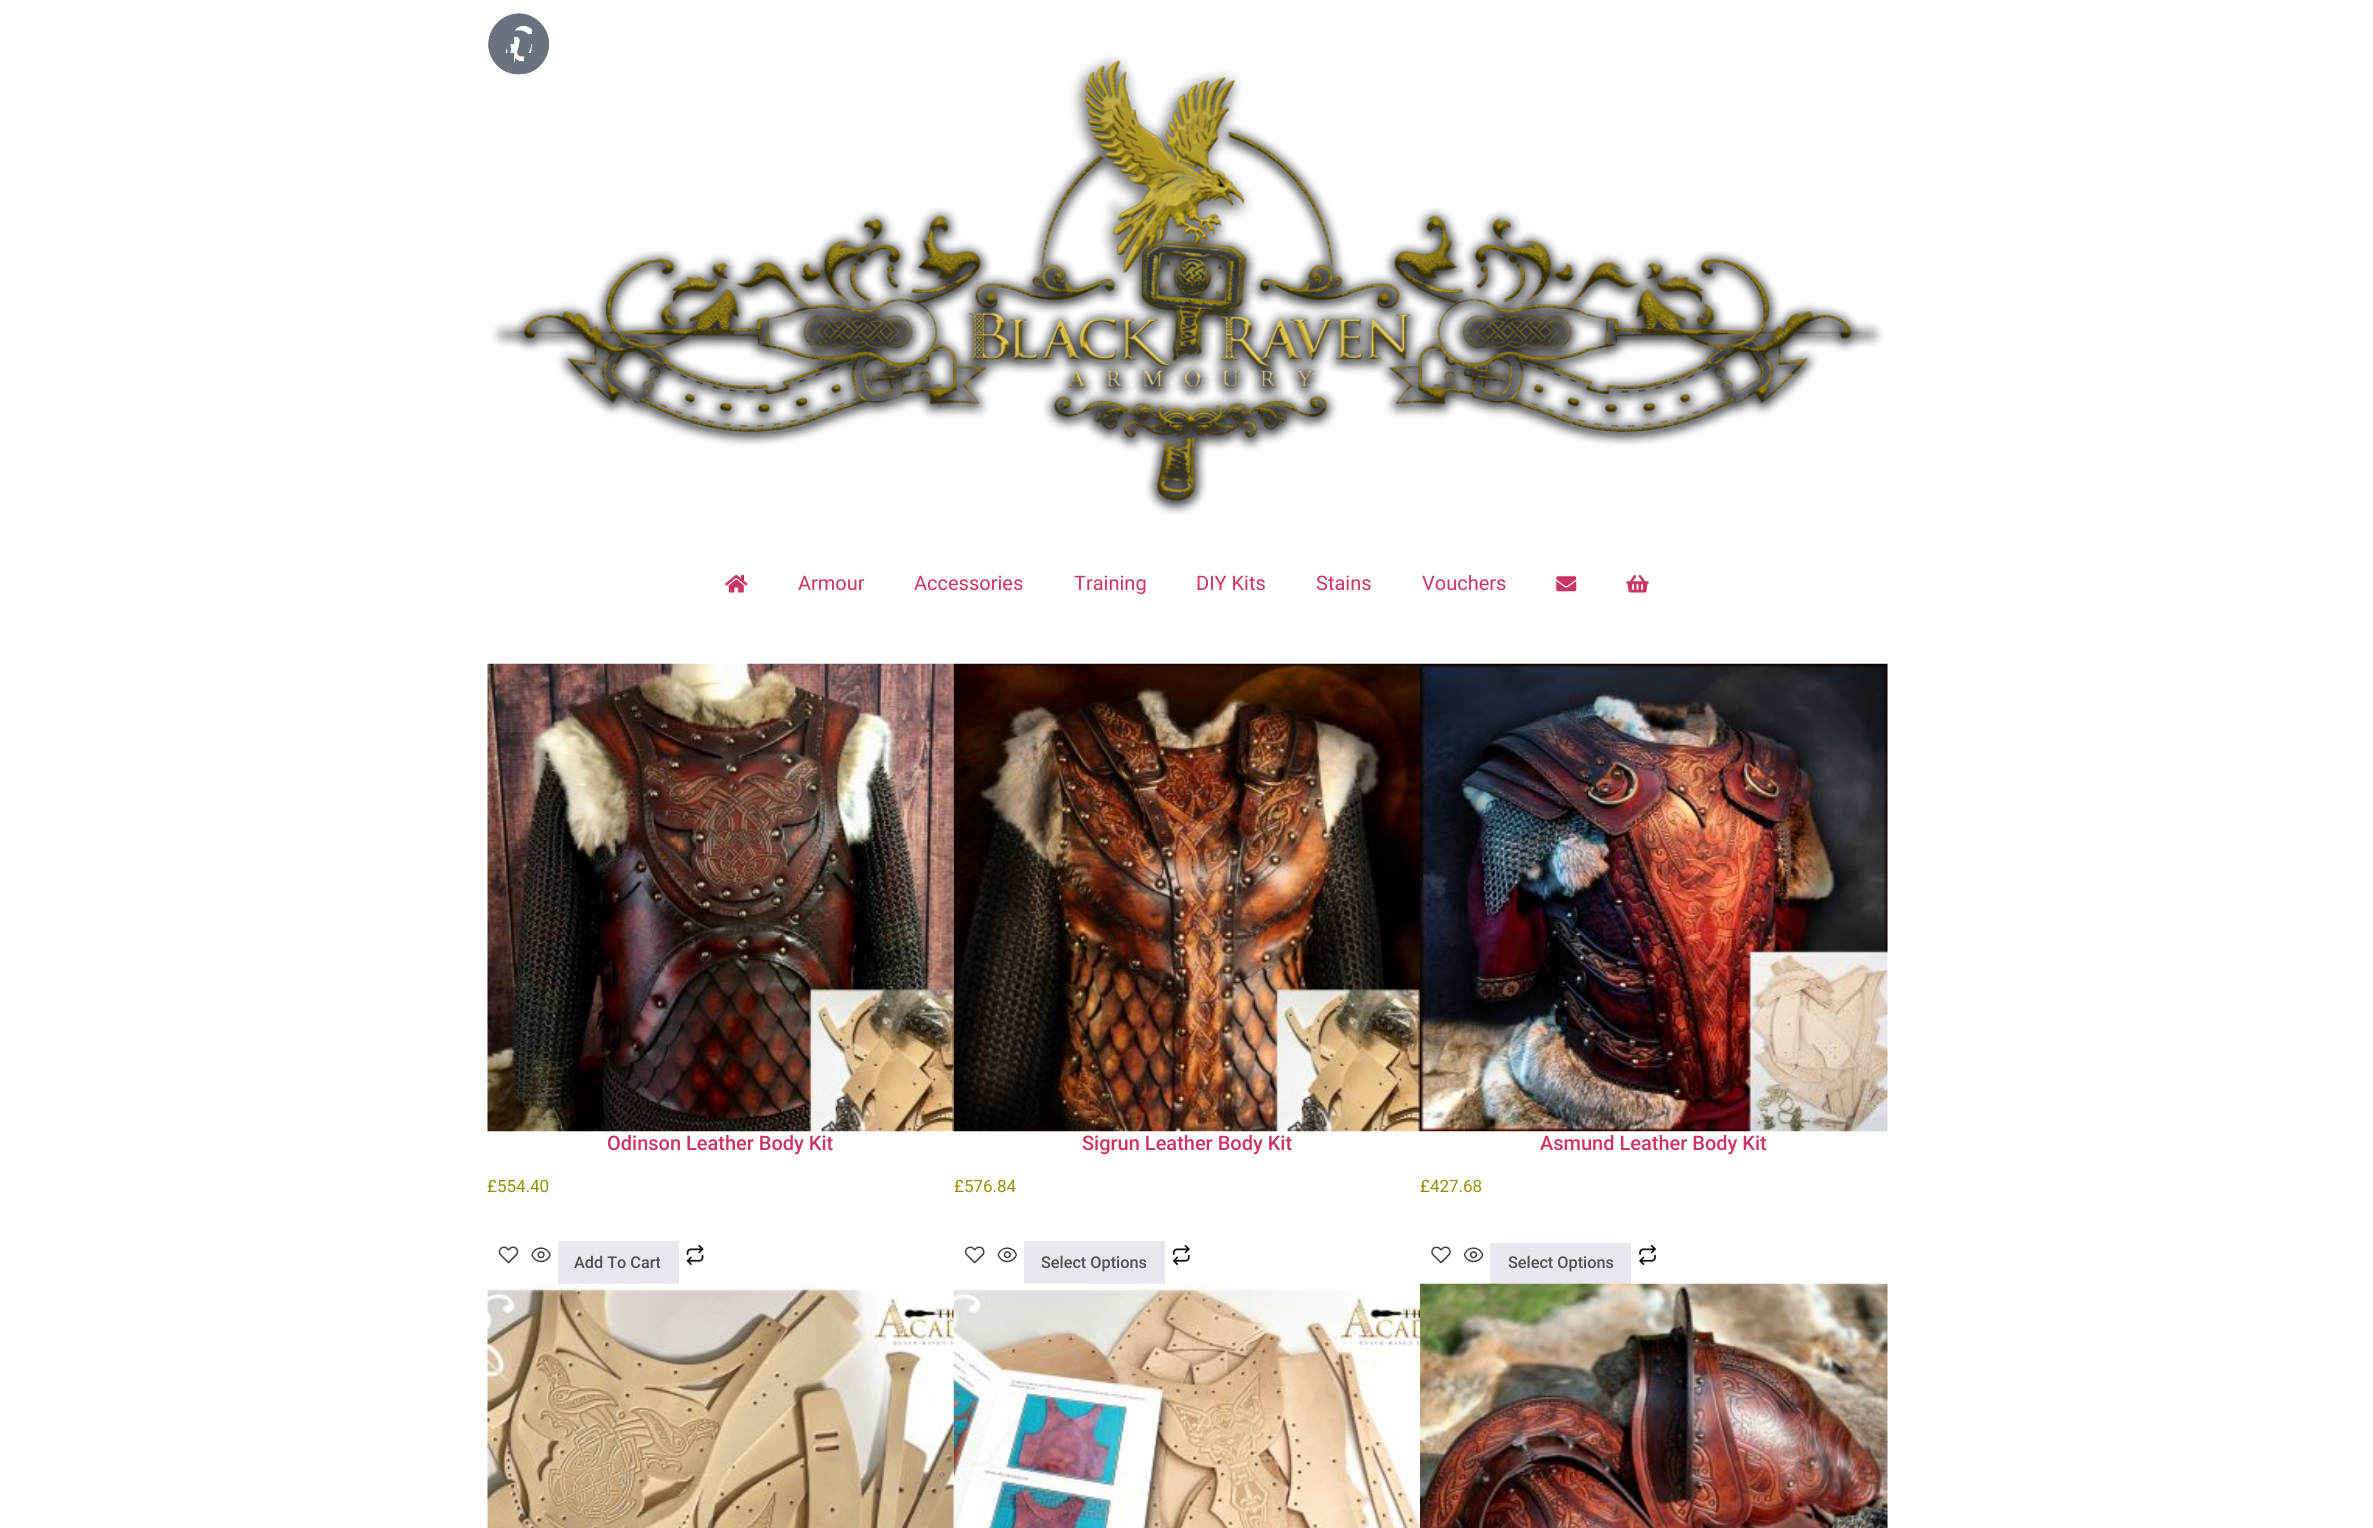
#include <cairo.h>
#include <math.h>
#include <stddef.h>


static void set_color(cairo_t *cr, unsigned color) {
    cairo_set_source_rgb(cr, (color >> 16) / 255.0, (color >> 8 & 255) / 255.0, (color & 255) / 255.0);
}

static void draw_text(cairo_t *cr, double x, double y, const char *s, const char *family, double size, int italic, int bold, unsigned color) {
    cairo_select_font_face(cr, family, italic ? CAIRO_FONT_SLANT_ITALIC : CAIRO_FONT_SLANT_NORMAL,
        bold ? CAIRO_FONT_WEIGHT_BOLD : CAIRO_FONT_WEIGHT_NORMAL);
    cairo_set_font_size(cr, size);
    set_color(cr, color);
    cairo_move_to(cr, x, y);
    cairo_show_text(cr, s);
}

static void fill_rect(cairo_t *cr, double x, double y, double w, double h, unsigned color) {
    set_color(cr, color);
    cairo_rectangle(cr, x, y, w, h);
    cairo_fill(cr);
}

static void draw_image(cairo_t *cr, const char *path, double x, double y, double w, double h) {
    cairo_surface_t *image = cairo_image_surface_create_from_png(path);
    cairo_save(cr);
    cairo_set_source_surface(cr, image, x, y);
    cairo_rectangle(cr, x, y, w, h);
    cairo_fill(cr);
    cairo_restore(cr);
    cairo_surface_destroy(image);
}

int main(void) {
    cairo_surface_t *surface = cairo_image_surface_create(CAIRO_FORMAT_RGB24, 2373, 1528);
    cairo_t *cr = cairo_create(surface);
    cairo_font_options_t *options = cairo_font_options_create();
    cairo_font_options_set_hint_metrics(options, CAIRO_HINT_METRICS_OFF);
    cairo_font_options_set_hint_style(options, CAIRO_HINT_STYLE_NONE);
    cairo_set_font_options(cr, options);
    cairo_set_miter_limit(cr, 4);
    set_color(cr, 0xFFFFFF);
    cairo_paint(cr);
    draw_image(cr, "assets/img2.png", 491, 55, 1393, 460);
    set_color(cr, 0x69727D);
    cairo_new_path(cr);
    cairo_move_to(cr, 549, 44);
    cairo_curve_to(cr, 549, 59, 538, 72, 524, 74);
    cairo_line_to(cr, 524, 53);
    cairo_line_to(cr, 531, 53);
    cairo_line_to(cr, 532, 44);
    cairo_line_to(cr, 524, 44);
    cairo_curve_to(cr, 524, 35, 523, 34, 532, 34);
    cairo_line_to(cr, 532, 26);
    cairo_curve_to(cr, 525, 25, 516, 25, 514, 33);
    cairo_line_to(cr, 514, 44);
    cairo_line_to(cr, 506, 44);
    cairo_line_to(cr, 506, 53);
    cairo_line_to(cr, 514, 53);
    cairo_line_to(cr, 514, 74);
    cairo_curve_to(cr, 507, 73, 500, 69, 496, 64);
    cairo_curve_to(cr, 473, 37, 507, -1, 536, 19);
    cairo_curve_to(cr, 544, 25, 549, 34, 549, 44);
    cairo_close_path(cr);
    cairo_fill(cr);
    draw_image(cr, "assets/img1.png", 488, 13, 61, 62);
    draw_image(cr, "assets/img3.png", 725, 575, 23, 18);
    draw_text(cr, 798, 590, "Armour", "Roboto", 20, 0, 0, 0xCC3366);
    draw_text(cr, 914, 590, "Accessories", "Roboto", 20, 0, 0, 0xCC3366);
    draw_text(cr, 1074, 590, "Training", "Roboto", 20, 0, 0, 0xCC3366);
    draw_text(cr, 1196, 590, "DIY Kits", "Roboto", 20, 0, 0, 0xCC3366);
    draw_text(cr, 1316, 590, "Stains", "Roboto", 20, 0, 0, 0xCC3366);
    draw_text(cr, 1422, 590, "Vouchers", "Roboto", 20, 0, 0, 0xCC3366);
    draw_image(cr, "assets/img4.png", 1556, 576, 21, 16);
    draw_image(cr, "assets/img5.png", 1626, 575, 23, 18);
    draw_image(cr, "assets/img6.png", 487, 663, 467, 469);
    draw_text(cr, 607, 1150, "Odinson Leather Body Kit", "Roboto Medium", 20, 0, 0, 0xCC3366);
    draw_text(cr, 487, 1192, "£554.40", "Roboto", 17, 0, 0, 0x958E09);
    draw_image(cr, "assets/img7.png", 498, 1246, 21, 18);
    draw_image(cr, "assets/img8.png", 531, 1247, 20, 16);
    fill_rect(cr, 558, 1241, 121, 43, 0xE9E6ED);
    draw_text(cr, 574, 1268, "Add To Cart", "Roboto Medium", 16.25, 0, 0, 0x515151);
    draw_image(cr, "assets/img9.png", 686, 1244, 18, 21);
    draw_image(cr, "assets/img10.png", 953, 663, 467, 469);
    draw_text(cr, 1082, 1150, "Sigrun Leather Body Kit", "Roboto Medium", 20, 0, 0, 0xCC3366);
    draw_text(cr, 954, 1192, "£576.84", "Roboto", 17, 0, 0, 0x958E09);
    draw_image(cr, "assets/img11.png", 965, 1246, 20, 18);
    draw_image(cr, "assets/img12.png", 997, 1247, 20, 16);
    fill_rect(cr, 1024, 1241, 141, 43, 0xE9E6ED);
    draw_text(cr, 1041, 1268, "Select Options", "Roboto Medium", 16.25, 0, 0, 0x515151);
    draw_image(cr, "assets/img13.png", 1172, 1244, 18, 21);
    draw_image(cr, "assets/img14.png", 1420, 663, 468, 469);
    draw_text(cr, 1540, 1150, "Asmund Leather Body Kit", "Roboto Medium", 20, 0, 0, 0xCC3366);
    draw_text(cr, 1420, 1192, "£427.68", "Roboto", 17, 0, 0, 0x958E09);
    draw_image(cr, "assets/img15.png", 1431, 1246, 20, 18);
    draw_image(cr, "assets/img16.png", 1463, 1247, 21, 16);
    fill_rect(cr, 1490, 1243, 141, 41, 0xE9E6ED);
    draw_text(cr, 1508, 1268, "Select Options", "Roboto Medium", 16.25, 0, 0, 0x515151);
    draw_image(cr, "assets/img17.png", 1639, 1244, 17, 21);
    draw_image(cr, "assets/img18.png", 487, 1283, 467, 245);
    draw_image(cr, "assets/img19.png", 953, 1283, 467, 245);
    draw_image(cr, "assets/img20.png", 1420, 1283, 468, 245);
    cairo_surface_write_to_png(surface, "output.png");
    cairo_font_options_destroy(options);
    cairo_destroy(cr);
    cairo_surface_destroy(surface);
    return 0;
}
